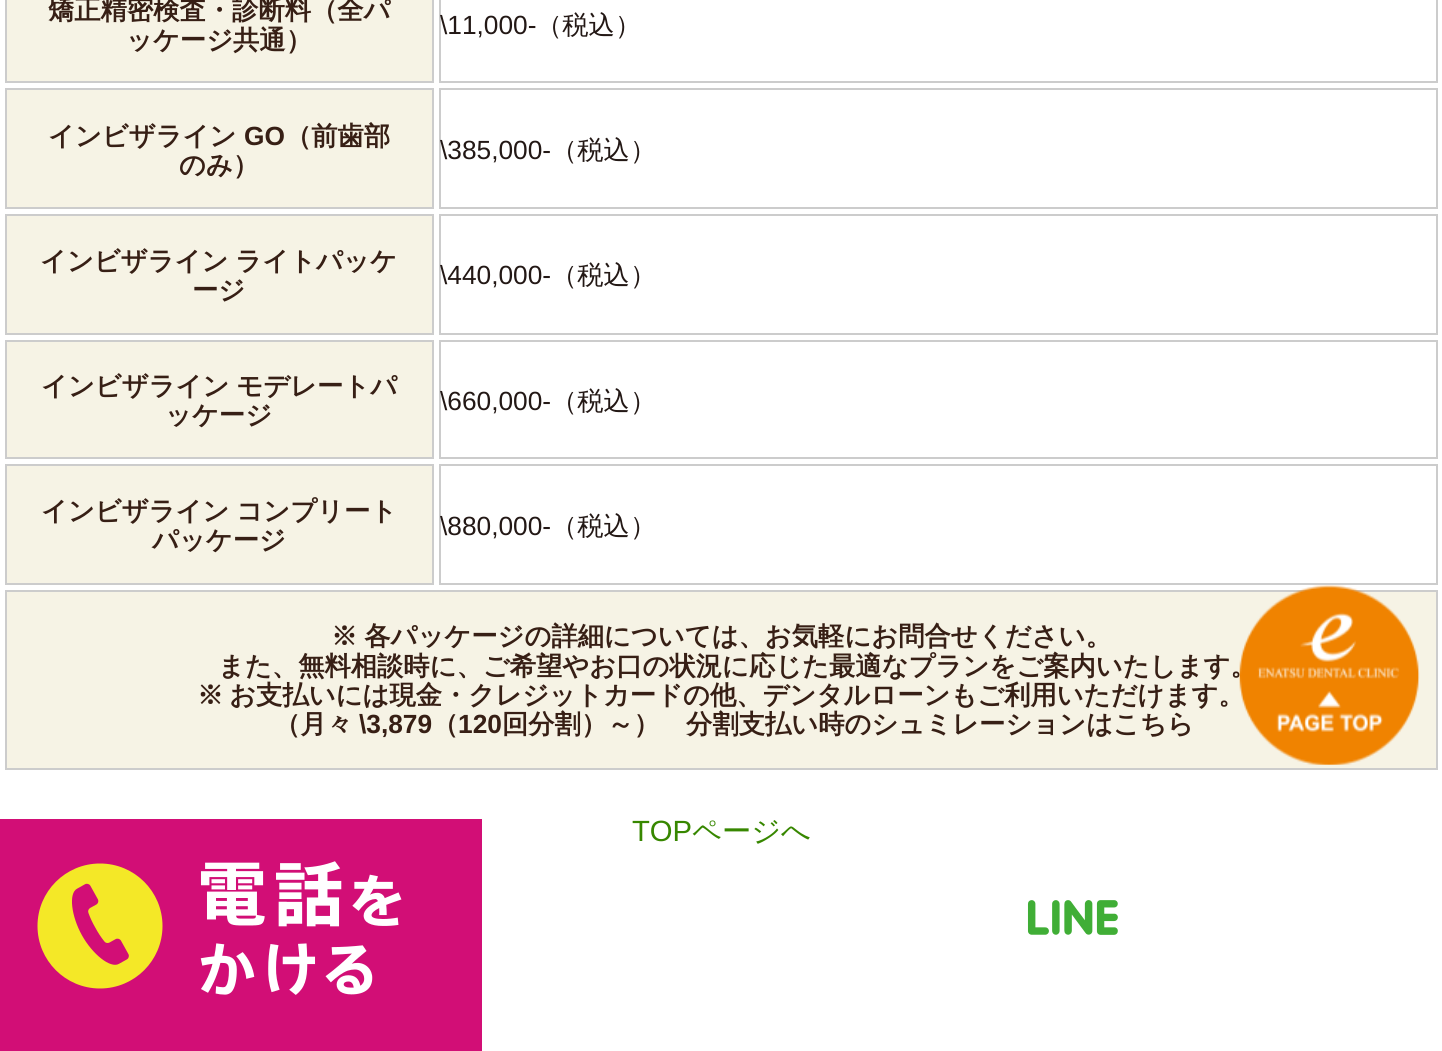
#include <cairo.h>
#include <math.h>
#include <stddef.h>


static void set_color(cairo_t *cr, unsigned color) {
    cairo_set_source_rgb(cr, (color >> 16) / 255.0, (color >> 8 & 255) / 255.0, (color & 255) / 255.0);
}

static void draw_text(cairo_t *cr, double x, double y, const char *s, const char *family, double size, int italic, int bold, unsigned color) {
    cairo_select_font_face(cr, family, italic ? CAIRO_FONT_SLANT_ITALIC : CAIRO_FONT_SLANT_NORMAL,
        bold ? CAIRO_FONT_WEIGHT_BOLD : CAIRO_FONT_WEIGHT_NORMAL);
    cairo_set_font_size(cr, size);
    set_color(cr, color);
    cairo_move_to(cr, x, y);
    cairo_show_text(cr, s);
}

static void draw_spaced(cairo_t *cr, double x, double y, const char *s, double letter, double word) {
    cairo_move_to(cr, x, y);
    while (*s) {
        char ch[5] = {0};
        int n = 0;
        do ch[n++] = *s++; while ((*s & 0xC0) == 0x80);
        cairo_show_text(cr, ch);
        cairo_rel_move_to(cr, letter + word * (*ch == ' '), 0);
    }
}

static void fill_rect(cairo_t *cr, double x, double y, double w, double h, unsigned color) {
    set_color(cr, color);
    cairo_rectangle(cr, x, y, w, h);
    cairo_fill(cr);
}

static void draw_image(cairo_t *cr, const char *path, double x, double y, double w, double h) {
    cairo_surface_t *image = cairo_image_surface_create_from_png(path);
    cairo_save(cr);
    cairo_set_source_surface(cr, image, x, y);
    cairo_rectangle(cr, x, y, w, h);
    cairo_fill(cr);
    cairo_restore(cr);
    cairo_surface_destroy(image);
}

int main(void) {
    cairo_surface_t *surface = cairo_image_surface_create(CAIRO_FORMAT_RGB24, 1442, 1051);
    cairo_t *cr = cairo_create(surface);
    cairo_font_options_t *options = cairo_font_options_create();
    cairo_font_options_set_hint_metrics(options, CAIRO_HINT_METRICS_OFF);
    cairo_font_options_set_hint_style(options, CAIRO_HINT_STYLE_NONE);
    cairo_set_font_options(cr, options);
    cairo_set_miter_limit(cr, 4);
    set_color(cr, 0xFFFFFF);
    cairo_paint(cr);
    set_color(cr, 0xF6F3E5);
    cairo_rectangle(cr, 6, -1, 427, 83);
    cairo_fill_preserve(cr);
    set_color(cr, 0xCCCCCC);
    cairo_stroke(cr);
    draw_text(cr, 48, 19, "矯正精密検査・診断料（全パ", "WenQuanYi Zen Hei", 26.3, 0, 1, 0x371F15);
    draw_text(cr, 126, 49, "ッケージ共通）", "WenQuanYi Zen Hei", 26.3, 0, 1, 0x371F15);
    cairo_rectangle(cr, 440, -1, 997, 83);
    set_color(cr, 0xCCCCCC);
    cairo_stroke(cr);
    draw_text(cr, 440, 34, "\\11,000-", "Liberation Sans", 26.3, 0, 0, 0x231815);
    draw_text(cr, 536, 34, "（税込）", "WenQuanYi Zen Hei Medium", 26.3, 0, 0, 0x231815);
    set_color(cr, 0xF6F3E5);
    cairo_rectangle(cr, 6, 89, 427, 119);
    cairo_fill_preserve(cr);
    set_color(cr, 0xCCCCCC);
    cairo_stroke(cr);
    draw_text(cr, 48, 145, "インビザライン", "WenQuanYi Zen Hei", 26.3, 0, 1, 0x371F15);
    draw_text(cr, 244, 145, "GO", "Liberation Sans", 26.3, 0, 1, 0x371F15);
    draw_text(cr, 285, 145, "（前歯部", "WenQuanYi Zen Hei", 26.3, 0, 1, 0x371F15);
    draw_text(cr, 179, 174, "のみ）", "WenQuanYi Zen Hei", 26.3, 0, 1, 0x371F15);
    cairo_rectangle(cr, 440, 89, 997, 119);
    set_color(cr, 0xCCCCCC);
    cairo_stroke(cr);
    draw_text(cr, 440, 159, "\\385,000-", "Liberation Sans", 26.3, 0, 0, 0x231815);
    draw_text(cr, 551, 159, "（税込）", "WenQuanYi Zen Hei Medium", 26.3, 0, 0, 0x231815);
    set_color(cr, 0xF6F3E5);
    cairo_rectangle(cr, 6, 215, 427, 119);
    cairo_fill_preserve(cr);
    set_color(cr, 0xCCCCCC);
    cairo_stroke(cr);
    cairo_select_font_face(cr, "WenQuanYi Zen Hei", CAIRO_FONT_SLANT_NORMAL, CAIRO_FONT_WEIGHT_BOLD);
    set_color(cr, 0x371F15);
    draw_spaced(cr, 40, 270, "インビザライン ライトパッケ", 0, -1);
    draw_text(cr, 192, 299, "ージ", "WenQuanYi Zen Hei", 26.3, 0, 1, 0x371F15);
    cairo_rectangle(cr, 440, 215, 997, 119);
    set_color(cr, 0xCCCCCC);
    cairo_stroke(cr);
    draw_text(cr, 440, 284, "\\440,000-", "Liberation Sans", 26.3, 0, 0, 0x231815);
    draw_text(cr, 551, 284, "（税込）", "WenQuanYi Zen Hei Medium", 26.3, 0, 0, 0x231815);
    set_color(cr, 0xF6F3E5);
    cairo_rectangle(cr, 6, 341, 427, 117);
    cairo_fill_preserve(cr);
    set_color(cr, 0xCCCCCC);
    cairo_stroke(cr);
    cairo_select_font_face(cr, "WenQuanYi Zen Hei", CAIRO_FONT_SLANT_NORMAL, CAIRO_FONT_WEIGHT_BOLD);
    set_color(cr, 0x371F15);
    draw_spaced(cr, 41, 395, "インビザライン モデレートパ", 0, -1);
    draw_text(cr, 165, 424, "ッケージ", "WenQuanYi Zen Hei", 26.3, 0, 1, 0x371F15);
    cairo_rectangle(cr, 440, 341, 997, 117);
    set_color(cr, 0xCCCCCC);
    cairo_stroke(cr);
    draw_text(cr, 440, 410, "\\660,000-", "Liberation Sans", 26.3, 0, 0, 0x231815);
    draw_text(cr, 551, 410, "（税込）", "WenQuanYi Zen Hei Medium", 26.3, 0, 0, 0x231815);
    set_color(cr, 0xF6F3E5);
    cairo_rectangle(cr, 6, 465, 427, 119);
    cairo_fill_preserve(cr);
    set_color(cr, 0xCCCCCC);
    cairo_stroke(cr);
    cairo_select_font_face(cr, "WenQuanYi Zen Hei", CAIRO_FONT_SLANT_NORMAL, CAIRO_FONT_WEIGHT_BOLD);
    set_color(cr, 0x371F15);
    draw_spaced(cr, 41, 520, "インビザライン コンプリート", 0, -1);
    draw_text(cr, 152, 549, "パッケージ", "WenQuanYi Zen Hei", 26.3, 0, 1, 0x371F15);
    cairo_rectangle(cr, 440, 465, 997, 119);
    set_color(cr, 0xCCCCCC);
    cairo_stroke(cr);
    draw_text(cr, 440, 535, "\\880,000-", "Liberation Sans", 26.3, 0, 0, 0x231815);
    draw_text(cr, 551, 535, "（税込）", "WenQuanYi Zen Hei Medium", 26.3, 0, 0, 0x231815);
    set_color(cr, 0xF6F3E5);
    cairo_rectangle(cr, 6, 591, 1431, 178);
    cairo_fill_preserve(cr);
    set_color(cr, 0xCCCCCC);
    cairo_stroke(cr);
    cairo_select_font_face(cr, "WenQuanYi Zen Hei", CAIRO_FONT_SLANT_NORMAL, CAIRO_FONT_WEIGHT_BOLD);
    set_color(cr, 0x371F15);
    draw_spaced(cr, 331, 645, "※ 各パッケージの詳細については、お気軽にお問合せください。", 0, -1);
    draw_text(cr, 218, 675, "また、無料相談時に、ご希望やお口の状況に応じた最適なプランをご案内いたします。", "WenQuanYi Zen Hei", 26.3, 0, 1, 0x371F15);
    draw_spaced(cr, 197, 704, "※ お支払いには現金・クレジットカードの他、デンタルローンもご利用いただけます。", 0, -2);
    draw_text(cr, 274, 733, "（月々", "WenQuanYi Zen Hei", 26.3, 0, 1, 0x371F15);
    draw_text(cr, 359, 733, "\\3,879", "Liberation Sans", 26.3, 0, 1, 0x371F15);
    draw_text(cr, 432, 733, "（", "WenQuanYi Zen Hei", 26.3, 0, 1, 0x371F15);
    draw_text(cr, 458, 733, "120", "Liberation Sans", 26.3, 0, 1, 0x371F15);
    draw_text(cr, 502, 733, "回分割）～）　分割支払い時のシュミレーションはこちら", "WenQuanYi Zen Hei", 26.3, 0, 1, 0x371F15);
    draw_text(cr, 632, 841, "TOP", "Liberation Sans", 29.25, 0, 0, 0x378700);
    draw_text(cr, 692, 841, "ページへ", "WenQuanYi Zen Hei Medium", 29.25, 0, 0, 0x378700);
    draw_image(cr, "assets/img1.png", 1239, 585, 181, 180);
    fill_rect(cr, 0, 819, 482, 232, 0xD20E76);
    draw_image(cr, "assets/img2.png", 37, 861, 365, 134);
    draw_image(cr, "assets/img3.png", 1027, 900, 91, 35);
    cairo_surface_write_to_png(surface, "output.png");
    cairo_font_options_destroy(options);
    cairo_destroy(cr);
    cairo_surface_destroy(surface);
    return 0;
}
